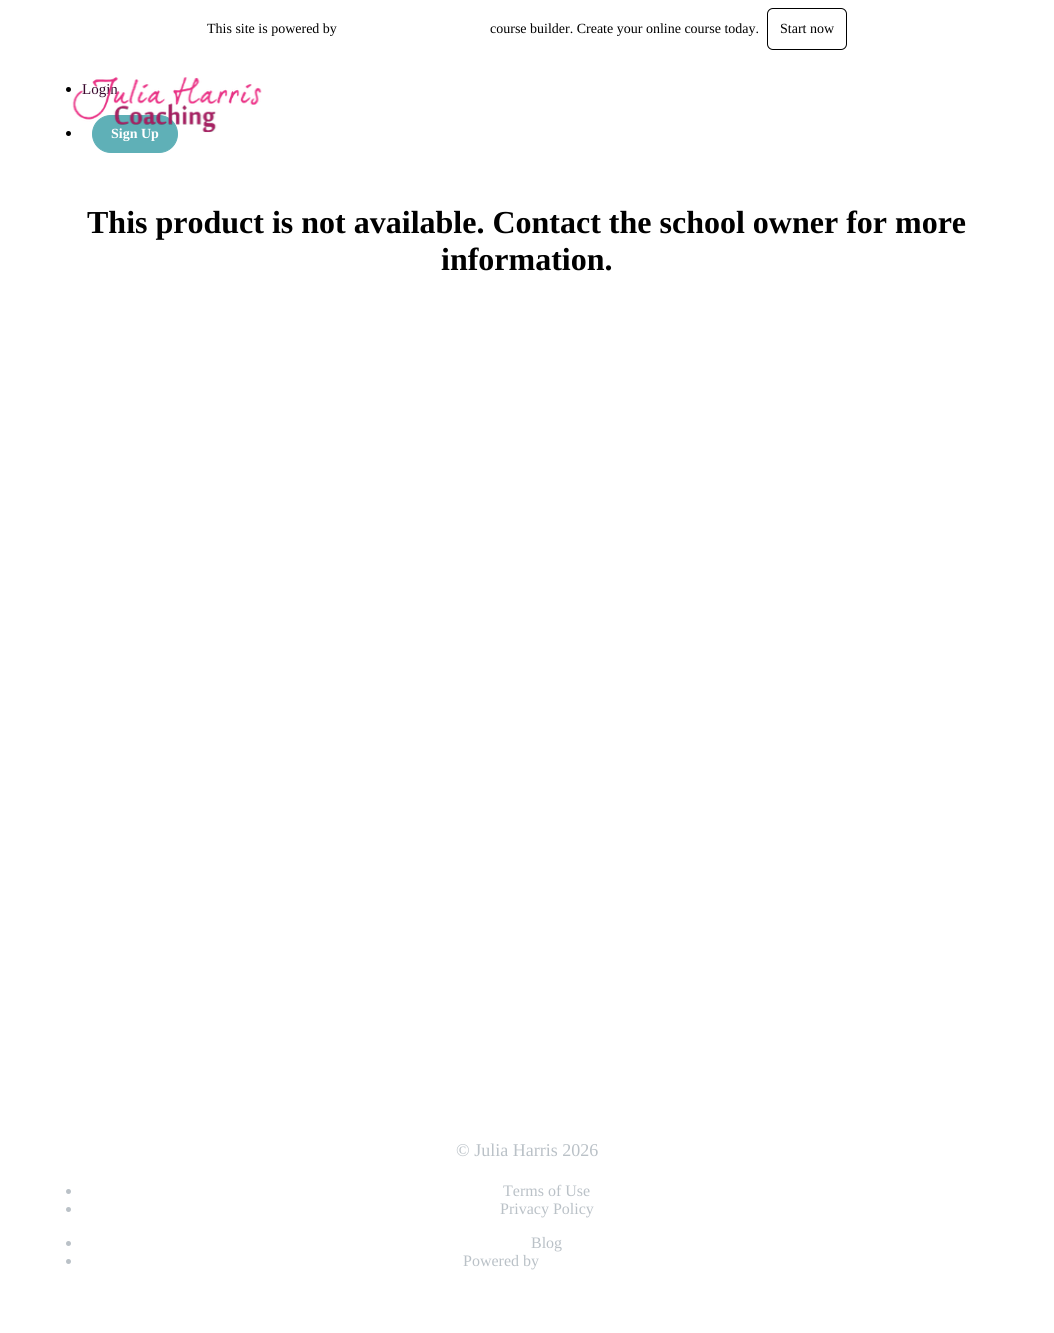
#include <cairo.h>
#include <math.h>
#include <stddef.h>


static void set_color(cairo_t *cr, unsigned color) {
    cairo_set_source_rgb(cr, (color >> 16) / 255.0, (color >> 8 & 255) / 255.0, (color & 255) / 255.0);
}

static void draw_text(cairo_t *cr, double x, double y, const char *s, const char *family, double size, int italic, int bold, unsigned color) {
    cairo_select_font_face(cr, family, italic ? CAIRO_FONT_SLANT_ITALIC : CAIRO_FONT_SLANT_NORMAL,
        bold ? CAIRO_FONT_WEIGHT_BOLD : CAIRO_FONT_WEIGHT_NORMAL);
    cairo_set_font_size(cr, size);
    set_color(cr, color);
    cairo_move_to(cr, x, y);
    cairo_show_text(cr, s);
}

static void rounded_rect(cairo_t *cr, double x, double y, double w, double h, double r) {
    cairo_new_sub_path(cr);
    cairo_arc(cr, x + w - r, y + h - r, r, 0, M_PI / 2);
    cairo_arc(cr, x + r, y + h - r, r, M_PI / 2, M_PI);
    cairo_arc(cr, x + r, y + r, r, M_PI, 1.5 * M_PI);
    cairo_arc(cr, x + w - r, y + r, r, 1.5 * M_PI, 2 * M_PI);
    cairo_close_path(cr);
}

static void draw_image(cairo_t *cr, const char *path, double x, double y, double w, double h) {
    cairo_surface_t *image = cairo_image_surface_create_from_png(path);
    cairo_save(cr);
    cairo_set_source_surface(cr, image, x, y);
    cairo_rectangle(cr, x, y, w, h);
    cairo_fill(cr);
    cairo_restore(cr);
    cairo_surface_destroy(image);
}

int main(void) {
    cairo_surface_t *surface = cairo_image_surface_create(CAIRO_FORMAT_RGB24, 1054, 1333);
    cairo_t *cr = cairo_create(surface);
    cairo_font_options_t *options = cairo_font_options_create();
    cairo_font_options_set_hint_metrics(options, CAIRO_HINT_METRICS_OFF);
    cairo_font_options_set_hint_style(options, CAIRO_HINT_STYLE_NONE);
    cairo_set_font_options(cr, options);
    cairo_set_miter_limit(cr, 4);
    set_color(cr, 0xFFFFFF);
    cairo_paint(cr);
    draw_text(cr, 207, 33, "This site is powered by", "Liberation Serif", 14, 0, 0, 0x000000);
    draw_text(cr, 490, 33, "course builder. Create your online course today.", "Liberation Serif", 14, 0, 0, 0x000000);
    rounded_rect(cr, 767.5, 8.5, 79, 41, 5.5);
    cairo_set_line_width(cr, 1);
    cairo_stroke(cr);
    draw_text(cr, 780, 33, "Start now", "Liberation Serif", 14, 0, 0, 0x000000);
    draw_text(cr, 82, 94, "Login", "Liberation Serif", 15, 0, 0, 0x39082D);
    set_color(cr, 0x5FB0B7);
    rounded_rect(cr, 92.5, 115.5, 85, 37, 18.5);
    cairo_fill_preserve(cr);
    cairo_stroke(cr);
    draw_text(cr, 111, 138, "Sign Up", "Liberation Serif", 14, 0, 1, 0xFFFFFF);
    draw_image(cr, "assets/img1.png", 72, 77, 190, 56);
    set_color(cr, 0x000000);
    cairo_arc(cr, 68.5, 89.5, 2.5, 0, 2 * M_PI);
    cairo_fill(cr);
    cairo_arc(cr, 68.5, 133.5, 2.5, 0, 2 * M_PI);
    cairo_fill(cr);
    draw_text(cr, 87, 233, "This product is not available. Contact the school owner for more", "Liberation Serif", 32, 0, 1, 0x000000);
    draw_text(cr, 441, 270, "information.", "Liberation Serif", 32, 0, 1, 0x000000);
    draw_text(cr, 456, 1156, "© Julia Harris 2026", "Liberation Serif", 18, 0, 0, 0xBAC1C7);
    cairo_new_path(cr);
    cairo_arc(cr, 68.5, 1191.5, 2.5, 0, 2 * M_PI);
    cairo_fill(cr);
    draw_text(cr, 503, 1196, "Terms of Use", "Liberation Serif", 16, 0, 0, 0xBAC1C7);
    cairo_new_path(cr);
    cairo_arc(cr, 68.5, 1209.5, 2.5, 0, 2 * M_PI);
    cairo_fill(cr);
    draw_text(cr, 500, 1214, "Privacy Policy", "Liberation Serif", 16, 0, 0, 0xBAC1C7);
    cairo_new_path(cr);
    cairo_arc(cr, 68.5, 1243.5, 2.5, 0, 2 * M_PI);
    cairo_fill(cr);
    draw_text(cr, 531, 1248, "Blog", "Liberation Serif", 16, 0, 0, 0xBAC1C7);
    cairo_new_path(cr);
    cairo_arc(cr, 68.5, 1261.5, 2.5, 0, 2 * M_PI);
    cairo_fill(cr);
    draw_text(cr, 463, 1266, "Powered by", "Liberation Serif", 16, 0, 0, 0xBAC1C7);
    cairo_surface_write_to_png(surface, "output.png");
    cairo_font_options_destroy(options);
    cairo_destroy(cr);
    cairo_surface_destroy(surface);
    return 0;
}
